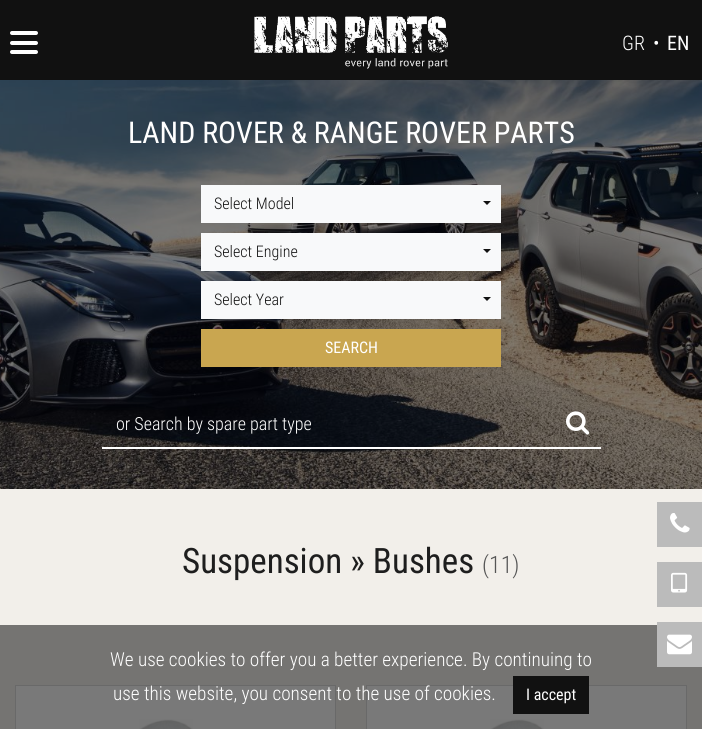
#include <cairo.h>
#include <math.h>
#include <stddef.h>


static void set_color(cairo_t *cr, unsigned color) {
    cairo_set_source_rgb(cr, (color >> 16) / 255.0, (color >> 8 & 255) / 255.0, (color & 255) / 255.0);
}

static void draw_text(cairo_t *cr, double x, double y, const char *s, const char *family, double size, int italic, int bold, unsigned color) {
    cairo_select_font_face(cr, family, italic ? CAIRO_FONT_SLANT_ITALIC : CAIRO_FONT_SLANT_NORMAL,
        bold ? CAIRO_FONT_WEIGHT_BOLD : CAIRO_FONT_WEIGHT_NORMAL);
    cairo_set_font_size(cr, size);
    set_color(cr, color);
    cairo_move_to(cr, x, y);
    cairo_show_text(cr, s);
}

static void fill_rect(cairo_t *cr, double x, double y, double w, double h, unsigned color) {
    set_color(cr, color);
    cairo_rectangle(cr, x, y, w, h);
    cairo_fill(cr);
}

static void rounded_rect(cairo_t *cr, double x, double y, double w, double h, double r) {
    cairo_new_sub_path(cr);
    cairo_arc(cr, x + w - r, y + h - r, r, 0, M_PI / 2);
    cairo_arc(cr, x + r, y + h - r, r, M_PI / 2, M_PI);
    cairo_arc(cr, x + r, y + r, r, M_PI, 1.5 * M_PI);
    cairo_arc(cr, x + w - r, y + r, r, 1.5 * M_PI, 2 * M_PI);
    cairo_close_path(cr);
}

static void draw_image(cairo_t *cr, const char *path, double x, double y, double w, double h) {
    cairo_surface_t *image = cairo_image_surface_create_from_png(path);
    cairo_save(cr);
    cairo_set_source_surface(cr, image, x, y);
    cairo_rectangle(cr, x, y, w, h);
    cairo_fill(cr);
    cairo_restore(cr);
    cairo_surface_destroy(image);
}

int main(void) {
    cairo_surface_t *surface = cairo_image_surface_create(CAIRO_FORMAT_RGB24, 702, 729);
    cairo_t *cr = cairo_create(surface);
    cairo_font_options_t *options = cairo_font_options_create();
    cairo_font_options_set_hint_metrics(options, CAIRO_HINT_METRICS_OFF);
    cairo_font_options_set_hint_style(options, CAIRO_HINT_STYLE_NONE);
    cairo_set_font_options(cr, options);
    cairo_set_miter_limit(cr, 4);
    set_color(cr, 0xF2EFEA);
    cairo_paint(cr);
    fill_rect(cr, 0, 0, 702, 80, 0x111111);
    set_color(cr, 0xFFFFFF);
    rounded_rect(cr, 10, 41, 28, 4, 2);
    cairo_fill(cr);
    rounded_rect(cr, 10, 31, 28, 4, 2);
    cairo_fill(cr);
    rounded_rect(cr, 10, 50, 28, 4, 2);
    cairo_fill(cr);
    draw_image(cr, "assets/img1.png", 254, 16, 194, 53);
    draw_text(cr, 622, 50, "GR", "Roboto Condensed Light", 20, 0, 0, 0xFFFFFF);
    draw_text(cr, 653, 50, "•", "Roboto Condensed Light", 20, 0, 0, 0xFFFFFF);
    draw_text(cr, 667, 50, "EN", "Roboto Condensed", 20, 0, 0, 0xFFFFFF);
    fill_rect(cr, 0, 625, 702, 104, 0x757472);
    draw_image(cr, "assets/img2.png", 0, 80, 702, 409);
    cairo_set_source_rgba(cr, 0.004, 0.004, 0.004, 0.5);
    cairo_rectangle(cr, 0, 80, 702, 409);
    cairo_fill(cr);
    draw_text(cr, 128, 143, "LAND ROVER & RANGE ROVER PARTS", "Roboto Condensed", 30, 0, 0, 0xFFFFFF);
    fill_rect(cr, 201, 185, 300, 38, 0xF8F9FA);
    draw_text(cr, 214, 209, "Select Model", "Roboto Condensed Light", 16, 0, 0, 0x111111);
    cairo_new_path(cr);
    cairo_move_to(cr, 483, 201);
    cairo_line_to(cr, 491, 201);
    cairo_line_to(cr, 487, 205);
    cairo_close_path(cr);
    cairo_fill(cr);
    fill_rect(cr, 201, 233, 300, 38, 0xF8F9FA);
    draw_text(cr, 214, 257, "Select Engine", "Roboto Condensed Light", 16, 0, 0, 0x111111);
    cairo_new_path(cr);
    cairo_move_to(cr, 483, 249);
    cairo_line_to(cr, 491, 249);
    cairo_line_to(cr, 487, 253);
    cairo_close_path(cr);
    cairo_fill(cr);
    fill_rect(cr, 201, 281, 300, 38, 0xF8F9FA);
    draw_text(cr, 214, 305, "Select Year", "Roboto Condensed Light", 16, 0, 0, 0x111111);
    cairo_new_path(cr);
    cairo_move_to(cr, 483, 297);
    cairo_line_to(cr, 491, 297);
    cairo_line_to(cr, 487, 301);
    cairo_close_path(cr);
    cairo_fill(cr);
    fill_rect(cr, 201, 329, 300, 38, 0xC9A650);
    draw_text(cr, 325, 353, "SEARCH", "Roboto Condensed", 16, 0, 0, 0xFFFFFF);
    fill_rect(cr, 102, 447, 499, 2, 0xFFFFFF);
    draw_image(cr, "assets/img3.png", 566, 411, 24, 24);
    draw_text(cr, 116, 430, "or Search by spare part type", "Roboto Condensed Light", 18, 0, 0, 0xFFFFFF);
    fill_rect(cr, 657, 502, 45, 45, 0xBBBBBB);
    draw_image(cr, "assets/img4.png", 670, 513, 20, 20);
    draw_text(cr, 182, 573, "Suspension » Bushes", "Roboto Condensed", 35, 0, 0, 0x1E1E1E);
    draw_text(cr, 482, 573, "(11)", "Roboto Condensed Light", 24, 0, 0, 0x555555);
    set_color(cr, 0x797979);
    cairo_rectangle(cr, 15.5, 685.5, 320, 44);
    cairo_fill_preserve(cr);
    set_color(cr, 0x696969);
    cairo_set_line_width(cr, 1);
    cairo_stroke(cr);
    draw_image(cr, "assets/img5.png", 139, 719, 54, 10);
    set_color(cr, 0x797979);
    cairo_rectangle(cr, 366.5, 685.5, 320, 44);
    cairo_fill_preserve(cr);
    set_color(cr, 0x696969);
    cairo_stroke(cr);
    draw_image(cr, "assets/img5.png", 490, 719, 54, 10);
    fill_rect(cr, 657, 562, 45, 45, 0xBBBBBB);
    draw_image(cr, "assets/img6.png", 671, 572, 17, 21);
    fill_rect(cr, 657, 622, 45, 45, 0xBBBBBB);
    draw_image(cr, "assets/img7.png", 667, 634, 25, 21);
    draw_text(cr, 110, 666, "We use cookies to offer you a better experience. By continuing to", "Roboto Condensed Light", 19.2, 0, 0, 0xFFFFFF);
    draw_text(cr, 113, 700, "use this website, you consent to the use of cookies.", "Roboto Condensed Light", 19.2, 0, 0, 0xFFFFFF);
    fill_rect(cr, 513, 676, 76, 38, 0x111111);
    draw_text(cr, 526, 700, "I accept", "Roboto Condensed", 16, 0, 0, 0xFFFFFF);
    cairo_surface_write_to_png(surface, "output.png");
    cairo_font_options_destroy(options);
    cairo_destroy(cr);
    cairo_surface_destroy(surface);
    return 0;
}
